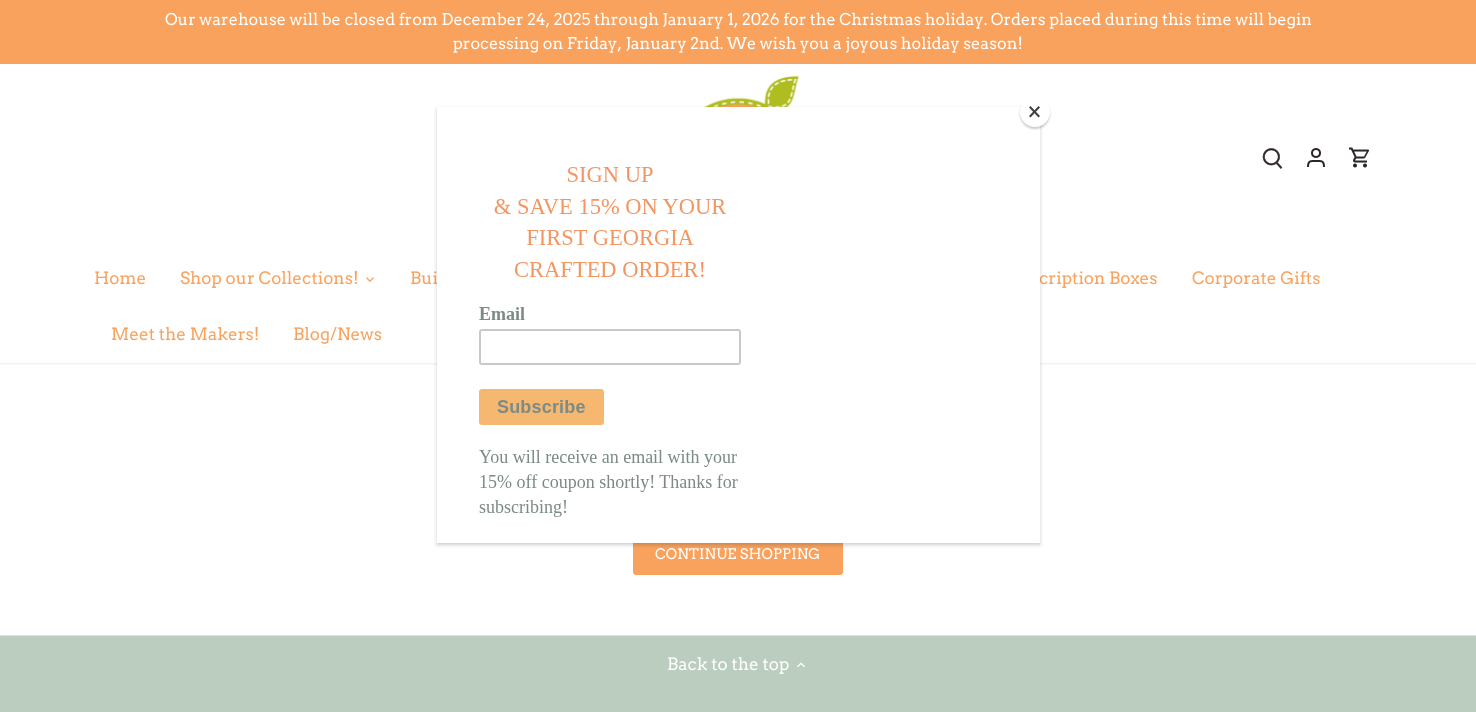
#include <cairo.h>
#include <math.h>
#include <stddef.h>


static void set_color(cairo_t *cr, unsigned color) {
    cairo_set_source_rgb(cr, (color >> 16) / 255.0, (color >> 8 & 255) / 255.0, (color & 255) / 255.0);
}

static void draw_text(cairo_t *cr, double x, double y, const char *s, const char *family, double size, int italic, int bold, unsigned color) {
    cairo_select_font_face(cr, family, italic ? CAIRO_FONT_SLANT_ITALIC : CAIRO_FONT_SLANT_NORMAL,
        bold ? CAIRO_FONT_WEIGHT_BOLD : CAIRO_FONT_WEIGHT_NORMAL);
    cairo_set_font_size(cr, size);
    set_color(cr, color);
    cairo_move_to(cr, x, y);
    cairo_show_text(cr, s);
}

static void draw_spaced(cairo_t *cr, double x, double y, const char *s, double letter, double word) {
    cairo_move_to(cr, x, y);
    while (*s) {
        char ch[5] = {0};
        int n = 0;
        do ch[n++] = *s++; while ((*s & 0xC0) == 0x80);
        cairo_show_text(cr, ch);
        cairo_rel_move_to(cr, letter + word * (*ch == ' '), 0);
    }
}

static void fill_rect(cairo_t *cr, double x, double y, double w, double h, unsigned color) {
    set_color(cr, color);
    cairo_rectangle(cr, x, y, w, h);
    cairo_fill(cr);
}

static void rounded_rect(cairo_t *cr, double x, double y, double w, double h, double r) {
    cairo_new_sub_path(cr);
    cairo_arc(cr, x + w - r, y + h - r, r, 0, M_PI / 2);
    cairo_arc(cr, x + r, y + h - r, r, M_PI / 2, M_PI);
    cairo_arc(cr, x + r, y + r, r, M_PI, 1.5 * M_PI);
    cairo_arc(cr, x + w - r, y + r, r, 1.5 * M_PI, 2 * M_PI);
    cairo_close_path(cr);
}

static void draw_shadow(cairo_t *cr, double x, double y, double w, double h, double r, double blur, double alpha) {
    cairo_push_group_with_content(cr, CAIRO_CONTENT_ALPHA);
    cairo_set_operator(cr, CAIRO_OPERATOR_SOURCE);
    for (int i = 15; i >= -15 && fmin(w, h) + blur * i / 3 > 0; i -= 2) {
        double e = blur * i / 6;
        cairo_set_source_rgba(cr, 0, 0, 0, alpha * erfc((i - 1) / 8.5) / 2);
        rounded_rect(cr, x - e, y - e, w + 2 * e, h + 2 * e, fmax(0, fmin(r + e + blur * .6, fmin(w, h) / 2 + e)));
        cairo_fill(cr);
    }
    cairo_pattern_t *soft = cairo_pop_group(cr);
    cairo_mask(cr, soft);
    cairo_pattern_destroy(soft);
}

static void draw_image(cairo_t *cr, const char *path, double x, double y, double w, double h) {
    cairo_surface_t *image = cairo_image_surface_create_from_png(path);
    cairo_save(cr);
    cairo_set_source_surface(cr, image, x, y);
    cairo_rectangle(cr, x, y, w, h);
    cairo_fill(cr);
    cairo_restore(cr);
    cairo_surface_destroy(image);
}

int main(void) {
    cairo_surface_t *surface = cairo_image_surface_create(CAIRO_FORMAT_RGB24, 1476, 712);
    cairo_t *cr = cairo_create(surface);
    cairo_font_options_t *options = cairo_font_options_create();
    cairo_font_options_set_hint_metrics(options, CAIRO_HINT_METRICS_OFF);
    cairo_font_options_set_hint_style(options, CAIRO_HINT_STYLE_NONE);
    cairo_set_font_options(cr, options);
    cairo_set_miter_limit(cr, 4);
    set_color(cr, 0xBBCDBF);
    cairo_paint(cr);
    fill_rect(cr, 0, 64, 1476, 571, 0xFFFFFF);
    cairo_save(cr);
    cairo_rectangle(cr, 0, 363, 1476, 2);
    cairo_clip(cr);
    set_color(cr, 0x000000);
    draw_shadow(cr, -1, 63, 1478, 301, 0, 1.5, 0.08);
    cairo_restore(cr);
    fill_rect(cr, 0, 0, 1476, 64, 0xF9A25E);
    draw_text(cr, 165, 25, "Our warehouse will be closed from December 24, 2025 through January 1, 2026 for the Christmas holiday. Orders placed during this time will begin", "Arvo", 16.15, 0, 0, 0xFFFFFF);
    draw_text(cr, 453, 49, "processing on Friday, January 2nd. We wish you a joyous holiday season!", "Arvo", 16.15, 0, 0, 0xFFFFFF);
    draw_image(cr, "assets/img1.png", 704, 75, 96, 32);
    draw_image(cr, "assets/img2.png", 1262, 148, 21, 21);
    cairo_arc(cr, 1316, 153, 4, 0, 2 * M_PI);
    set_color(cr, 0x2C2528);
    cairo_stroke(cr);
    cairo_new_path(cr);
    cairo_move_to(cr, 1324, 167);
    cairo_curve_to(cr, 1324, 160.5, 1321.5, 161, 1316, 161);
    cairo_curve_to(cr, 1310.5, 161, 1308, 160.5, 1308, 167);
    cairo_stroke(cr);
    draw_image(cr, "assets/img3.png", 1349, 147, 20, 21);
    draw_text(cr, 94, 284, "Home", "Arvo", 17, 0, 0, 0xF9A25E);
    draw_text(cr, 180, 284, "Shop our Collections!", "Arvo", 17, 0, 0, 0xF9A25E);
    draw_image(cr, "assets/img4.png", 366, 277, 8, 5);
    draw_text(cr, 410, 284, "Bui", "Arvo", 17, 0, 0, 0xF9A25E);
    draw_text(cr, 1039, 284, "cription Boxes", "Arvo", 17, 0, 0, 0xF9A25E);
    draw_text(cr, 1192, 284, "Corporate Gifts", "Arvo", 17, 0, 0, 0xF9A25E);
    draw_text(cr, 111, 340, "Meet the Makers!", "Arvo", 17, 0, 0, 0xF9A25E);
    draw_text(cr, 293, 340, "Blog/News", "Arvo", 17, 0, 0, 0xF9A25E);
    rounded_rect(cr, 634, 535, 208, 39, 2);
    cairo_fill_preserve(cr);
    cairo_stroke(cr);
    cairo_set_font_size(cr, 14.5);
    set_color(cr, 0xFFFFFF);
    draw_spaced(cr, 655, 559, "CONTINUE SHOPPING", 0.1, 0);
    fill_rect(cr, 0, 635, 1476, 1, 0xE2E2E2);
    draw_text(cr, 667, 670, "Back to the top", "Arvo", 17, 0, 0, 0xFFFFFF);
    draw_image(cr, "assets/img5.png", 797, 662, 8, 5);
    set_color(cr, 0x000000);
    draw_shadow(cr, 437, 109, 603, 436, 0, 2, 0.2);
    draw_image(cr, "assets/img6.png", 437, 107, 603, 436);
    draw_shadow(cr, 1020, 99, 30, 30, 15, 1, 0.2);
    set_color(cr, 0xFFFFFF);
    cairo_arc(cr, 1035, 112, 15, 0, 2 * M_PI);
    cairo_fill(cr);
    set_color(cr, 0x414141);
    cairo_new_path(cr);
    cairo_move_to(cr, 1038.5, 106);
    cairo_line_to(cr, 1040, 107.5);
    cairo_line_to(cr, 1030.5, 117.5);
    cairo_line_to(cr, 1029, 116);
    cairo_close_path(cr);
    cairo_fill(cr);
    cairo_new_path(cr);
    cairo_move_to(cr, 1029, 107.5);
    cairo_line_to(cr, 1030.5, 106);
    cairo_line_to(cr, 1040, 116);
    cairo_line_to(cr, 1038.5, 117.5);
    cairo_close_path(cr);
    cairo_fill(cr);
    cairo_surface_write_to_png(surface, "output.png");
    cairo_font_options_destroy(options);
    cairo_destroy(cr);
    cairo_surface_destroy(surface);
    return 0;
}
